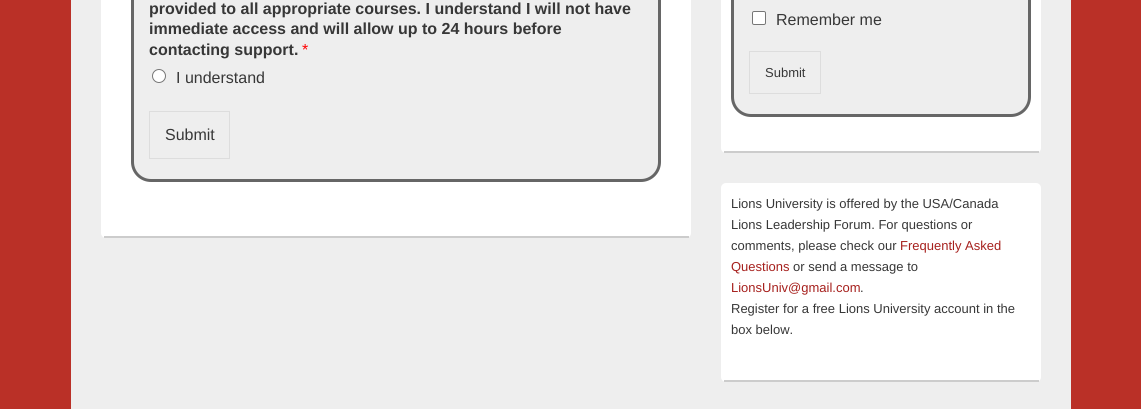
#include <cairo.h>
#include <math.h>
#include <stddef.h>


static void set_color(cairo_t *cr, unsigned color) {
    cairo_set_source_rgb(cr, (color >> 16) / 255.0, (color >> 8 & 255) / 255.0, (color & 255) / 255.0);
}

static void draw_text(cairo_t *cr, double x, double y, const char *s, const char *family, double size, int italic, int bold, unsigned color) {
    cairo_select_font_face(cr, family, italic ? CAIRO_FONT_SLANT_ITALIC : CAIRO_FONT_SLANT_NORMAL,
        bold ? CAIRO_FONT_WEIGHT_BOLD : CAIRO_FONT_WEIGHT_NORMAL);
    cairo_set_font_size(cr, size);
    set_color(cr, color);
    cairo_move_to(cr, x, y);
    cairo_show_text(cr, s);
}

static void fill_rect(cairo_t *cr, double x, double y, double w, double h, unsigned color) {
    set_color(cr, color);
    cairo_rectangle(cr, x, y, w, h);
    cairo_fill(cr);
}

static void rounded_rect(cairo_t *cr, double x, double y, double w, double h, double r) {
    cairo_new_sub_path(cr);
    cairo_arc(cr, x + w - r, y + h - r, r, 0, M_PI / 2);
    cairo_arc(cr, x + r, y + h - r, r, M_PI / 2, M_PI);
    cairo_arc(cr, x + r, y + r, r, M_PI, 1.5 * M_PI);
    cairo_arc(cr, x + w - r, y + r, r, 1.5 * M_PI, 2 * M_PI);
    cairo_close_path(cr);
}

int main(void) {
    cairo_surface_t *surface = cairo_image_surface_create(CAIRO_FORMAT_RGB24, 1141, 409);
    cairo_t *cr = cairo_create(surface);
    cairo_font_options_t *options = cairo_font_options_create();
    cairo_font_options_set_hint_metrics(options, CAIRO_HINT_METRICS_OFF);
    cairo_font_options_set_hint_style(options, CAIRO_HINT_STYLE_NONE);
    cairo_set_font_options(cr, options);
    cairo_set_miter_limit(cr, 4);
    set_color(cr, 0xBA3027);
    cairo_paint(cr);
    fill_rect(cr, 71, 0, 1000, 409, 0xEEEEEE);
    set_color(cr, 0xFFFFFF);
    rounded_rect(cr, 101, -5, 590, 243, 5);
    cairo_fill(cr);
    fill_rect(cr, 104, 236, 585, 2, 0xCCCCCC);
    set_color(cr, 0xEEEEEE);
    rounded_rect(cr, 132.5, -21.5, 527, 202, 18.5);
    cairo_fill_preserve(cr);
    set_color(cr, 0x666666);
    cairo_set_line_width(cr, 3);
    cairo_stroke(cr);
    draw_text(cr, 149, 14, "provided to all appropriate courses. I understand I will not have", "Liberation Sans", 16, 0, 1, 0x373737);
    draw_text(cr, 149, 34, "immediate access and will allow up to 24 hours before", "Liberation Sans", 16, 0, 1, 0x373737);
    draw_text(cr, 149, 55, "contacting support.", "Liberation Sans", 16, 0, 1, 0x373737);
    draw_text(cr, 302, 55, "*", "Liberation Sans", 16, 0, 0, 0xFF0000);
    set_color(cr, 0xFFFFFF);
    cairo_new_path(cr);
    cairo_arc(cr, 159, 76, 6.5, 0, 2 * M_PI);
    cairo_fill_preserve(cr);
    set_color(cr, 0x767676);
    cairo_set_line_width(cr, 1);
    cairo_stroke(cr);
    draw_text(cr, 176, 83, "I understand", "Liberation Sans", 16, 0, 0, 0x373737);
    cairo_rectangle(cr, 149.5, 111.5, 80, 47);
    set_color(cr, 0xDDDDDD);
    cairo_stroke(cr);
    draw_text(cr, 165, 140, "Submit", "Liberation Sans", 16, 0, 0, 0x373737);
    set_color(cr, 0xFFFFFF);
    rounded_rect(cr, 721, -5, 320, 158, 5);
    cairo_fill(cr);
    fill_rect(cr, 724, 151, 315, 2, 0xCCCCCC);
    set_color(cr, 0xEEEEEE);
    rounded_rect(cr, 732.5, -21.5, 297, 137, 18.5);
    cairo_fill_preserve(cr);
    set_color(cr, 0x666666);
    cairo_set_line_width(cr, 3);
    cairo_stroke(cr);
    set_color(cr, 0xFFFFFF);
    rounded_rect(cr, 752.5, 11.5, 13, 13, 1.5);
    cairo_fill_preserve(cr);
    set_color(cr, 0x767676);
    cairo_set_line_width(cr, 1);
    cairo_stroke(cr);
    draw_text(cr, 776, 25, "Remember me", "Liberation Sans", 16, 0, 0, 0x373737);
    cairo_rectangle(cr, 749.5, 51.5, 71, 42);
    set_color(cr, 0xDDDDDD);
    cairo_stroke(cr);
    draw_text(cr, 765, 77, "Submit", "Liberation Sans", 13, 0, 0, 0x373737);
    set_color(cr, 0xFFFFFF);
    rounded_rect(cr, 721, 183, 320, 199, 5);
    cairo_fill(cr);
    fill_rect(cr, 724, 380, 315, 2, 0xCCCCCC);
    draw_text(cr, 731, 208, "Lions University is offered by the USA/Canada", "Liberation Sans", 13, 0, 0, 0x373737);
    draw_text(cr, 731, 229, "Lions Leadership Forum. For questions or", "Liberation Sans", 13, 0, 0, 0x373737);
    draw_text(cr, 731, 250, "comments, please check our", "Liberation Sans", 13, 0, 0, 0x373737);
    draw_text(cr, 900, 250, "Frequently Asked", "Liberation Sans", 13, 0, 0, 0xA6201D);
    draw_text(cr, 731, 271, "Questions", "Liberation Sans", 13, 0, 0, 0xA6201D);
    draw_text(cr, 793, 271, "or send a message to", "Liberation Sans", 13, 0, 0, 0x373737);
    draw_text(cr, 731, 292, "LionsUniv@gmail.com", "Liberation Sans", 13, 0, 0, 0xA6201D);
    draw_text(cr, 860, 292, ".", "Liberation Sans", 13, 0, 0, 0x373737);
    draw_text(cr, 731, 313, "Register for a free Lions University account in the", "Liberation Sans", 13, 0, 0, 0x373737);
    draw_text(cr, 731, 334, "box below.", "Liberation Sans", 13, 0, 0, 0x373737);
    cairo_surface_write_to_png(surface, "output.png");
    cairo_font_options_destroy(options);
    cairo_destroy(cr);
    cairo_surface_destroy(surface);
    return 0;
}
